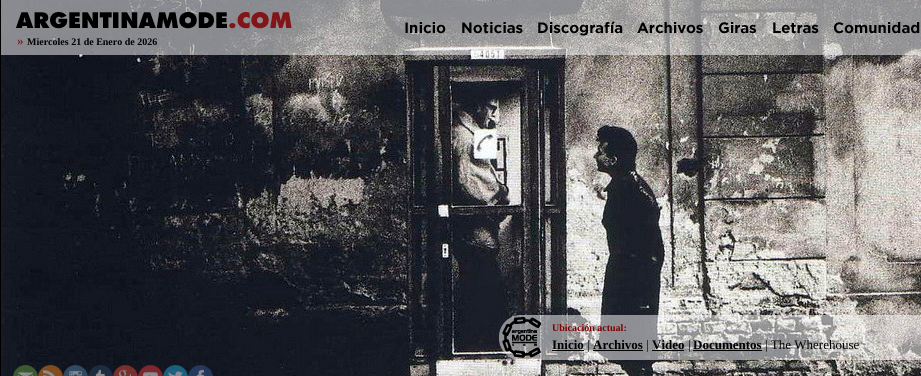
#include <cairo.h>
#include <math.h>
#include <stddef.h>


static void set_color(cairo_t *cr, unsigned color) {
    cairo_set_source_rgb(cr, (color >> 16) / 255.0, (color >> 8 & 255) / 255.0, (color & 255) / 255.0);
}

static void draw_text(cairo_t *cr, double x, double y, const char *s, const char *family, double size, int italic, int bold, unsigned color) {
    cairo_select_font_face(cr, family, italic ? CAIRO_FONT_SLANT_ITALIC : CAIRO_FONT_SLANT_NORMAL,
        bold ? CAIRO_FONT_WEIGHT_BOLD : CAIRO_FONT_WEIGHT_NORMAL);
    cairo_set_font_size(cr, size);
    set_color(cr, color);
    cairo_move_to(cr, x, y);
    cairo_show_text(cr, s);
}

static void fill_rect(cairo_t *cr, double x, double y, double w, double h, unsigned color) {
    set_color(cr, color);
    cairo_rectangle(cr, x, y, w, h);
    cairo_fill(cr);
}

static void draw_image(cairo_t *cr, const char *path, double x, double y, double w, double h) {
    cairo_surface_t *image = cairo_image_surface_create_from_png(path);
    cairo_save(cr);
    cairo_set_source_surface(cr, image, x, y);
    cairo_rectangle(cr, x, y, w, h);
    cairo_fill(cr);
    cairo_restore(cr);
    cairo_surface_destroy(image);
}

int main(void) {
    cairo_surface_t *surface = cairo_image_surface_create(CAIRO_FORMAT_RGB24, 921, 376);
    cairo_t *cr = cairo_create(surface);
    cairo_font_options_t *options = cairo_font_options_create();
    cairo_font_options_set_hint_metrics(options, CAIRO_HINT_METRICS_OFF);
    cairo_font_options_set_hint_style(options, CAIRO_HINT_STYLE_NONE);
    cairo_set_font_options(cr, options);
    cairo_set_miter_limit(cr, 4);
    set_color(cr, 0x000000);
    cairo_paint(cr);
    draw_image(cr, "assets/img1.png", 1, 0, 920, 376);
    draw_image(cr, "assets/img2.png", 1, 0, 395, 55);
    draw_text(cr, 17, 45, "»", "Liberation Serif", 13, 0, 0, 0x800000);
    draw_text(cr, 27, 45, "Miercoles 21 de Enero de 2026", "Liberation Serif", 10, 0, 1, 0x000000);
    cairo_set_source_rgba(cr, 1, 1, 1, 0.5);
    cairo_rectangle(cr, 396, 0, 525, 55);
    cairo_fill(cr);
    draw_image(cr, "assets/img3.png", 405, 22, 41, 12);
    draw_image(cr, "assets/img4.png", 462, 22, 61, 12);
    draw_image(cr, "assets/img5.png", 538, 21, 85, 15);
    draw_image(cr, "assets/img6.png", 637, 22, 66, 12);
    draw_image(cr, "assets/img7.png", 719, 22, 37, 12);
    draw_image(cr, "assets/img8.png", 773, 22, 46, 12);
    draw_image(cr, "assets/img9.png", 834, 22, 86, 12);
    draw_image(cr, "assets/img10.png", 499, 315, 43, 45);
    cairo_rectangle(cr, 542, 315, 379, 19);
    cairo_fill(cr);
    draw_text(cr, 552, 331, "Ubicación actual:", "Liberation Serif", 10, 0, 1, 0x800000);
    cairo_set_source_rgba(cr, 1, 1, 1, 0.5);
    cairo_rectangle(cr, 542, 334, 379, 26);
    cairo_fill(cr);
    draw_text(cr, 552, 349, "Inicio", "Liberation Serif", 13, 0, 1, 0x000000);
    fill_rect(cr, 552, 350, 32, 1, 0x000000);
    draw_text(cr, 587, 349, "|", "Liberation Serif", 13, 0, 0, 0x000000);
    draw_text(cr, 593, 349, "Archivos", "Liberation Serif", 13, 0, 1, 0x000000);
    fill_rect(cr, 593, 350, 50, 1, 0x000000);
    draw_text(cr, 646, 349, "|", "Liberation Serif", 13, 0, 0, 0x000000);
    draw_text(cr, 652, 349, "Video", "Liberation Serif", 13, 0, 1, 0x000000);
    fill_rect(cr, 652, 350, 32, 1, 0x000000);
    draw_text(cr, 688, 349, "|", "Liberation Serif", 13, 0, 0, 0x000000);
    draw_text(cr, 693, 349, "Documentos", "Liberation Serif", 13, 0, 1, 0x000000);
    fill_rect(cr, 693, 350, 69, 1, 0x000000);
    draw_text(cr, 765, 349, "| The Wherehouse", "Liberation Serif", 13, 0, 0, 0x000000);
    draw_image(cr, "assets/img11.png", 13, 365, 25, 11);
    draw_image(cr, "assets/img12.png", 38, 365, 25, 11);
    draw_image(cr, "assets/img13.png", 63, 365, 25, 11);
    draw_image(cr, "assets/img14.png", 88, 365, 25, 11);
    draw_image(cr, "assets/img15.png", 113, 365, 25, 11);
    draw_image(cr, "assets/img16.png", 138, 365, 25, 11);
    draw_image(cr, "assets/img17.png", 163, 365, 25, 11);
    draw_image(cr, "assets/img18.png", 188, 365, 25, 11);
    cairo_surface_write_to_png(surface, "output.png");
    cairo_font_options_destroy(options);
    cairo_destroy(cr);
    cairo_surface_destroy(surface);
    return 0;
}
